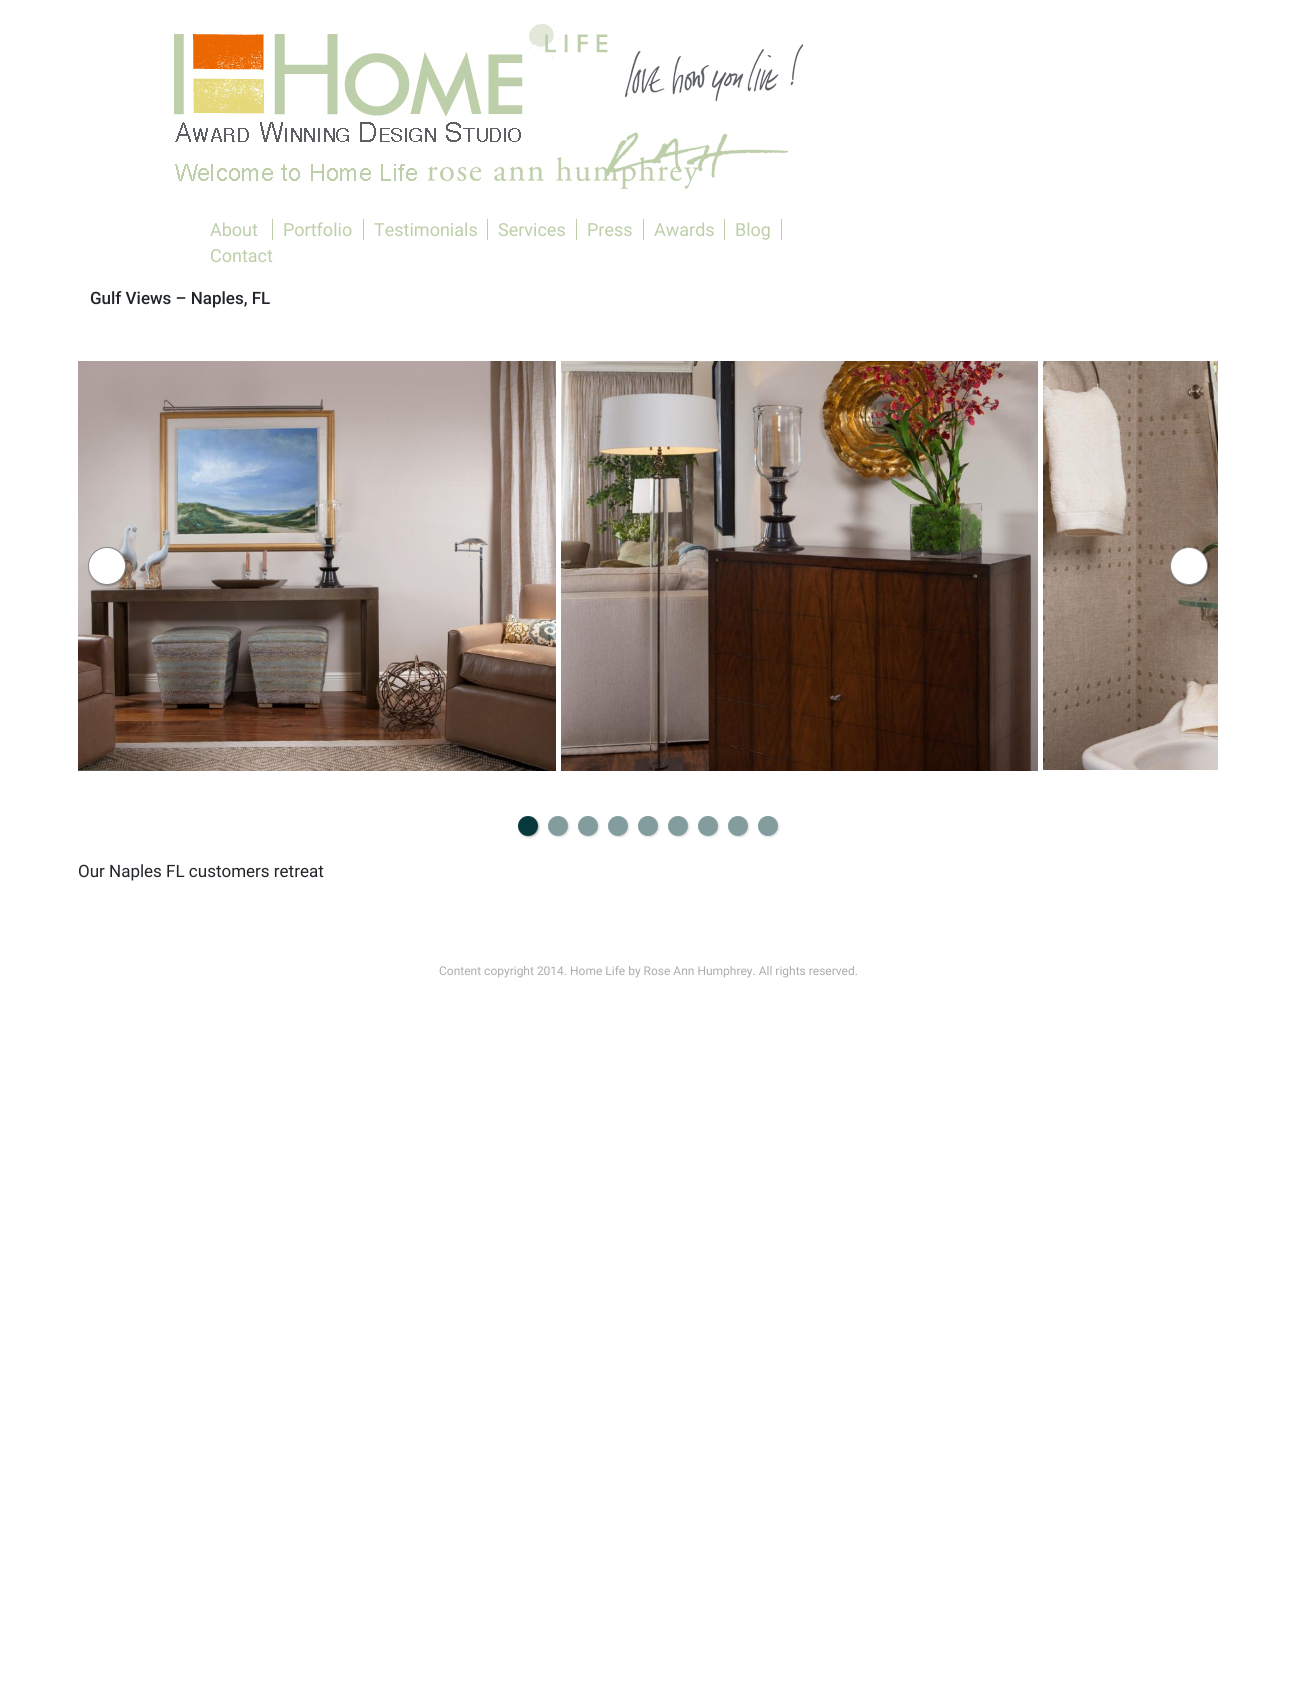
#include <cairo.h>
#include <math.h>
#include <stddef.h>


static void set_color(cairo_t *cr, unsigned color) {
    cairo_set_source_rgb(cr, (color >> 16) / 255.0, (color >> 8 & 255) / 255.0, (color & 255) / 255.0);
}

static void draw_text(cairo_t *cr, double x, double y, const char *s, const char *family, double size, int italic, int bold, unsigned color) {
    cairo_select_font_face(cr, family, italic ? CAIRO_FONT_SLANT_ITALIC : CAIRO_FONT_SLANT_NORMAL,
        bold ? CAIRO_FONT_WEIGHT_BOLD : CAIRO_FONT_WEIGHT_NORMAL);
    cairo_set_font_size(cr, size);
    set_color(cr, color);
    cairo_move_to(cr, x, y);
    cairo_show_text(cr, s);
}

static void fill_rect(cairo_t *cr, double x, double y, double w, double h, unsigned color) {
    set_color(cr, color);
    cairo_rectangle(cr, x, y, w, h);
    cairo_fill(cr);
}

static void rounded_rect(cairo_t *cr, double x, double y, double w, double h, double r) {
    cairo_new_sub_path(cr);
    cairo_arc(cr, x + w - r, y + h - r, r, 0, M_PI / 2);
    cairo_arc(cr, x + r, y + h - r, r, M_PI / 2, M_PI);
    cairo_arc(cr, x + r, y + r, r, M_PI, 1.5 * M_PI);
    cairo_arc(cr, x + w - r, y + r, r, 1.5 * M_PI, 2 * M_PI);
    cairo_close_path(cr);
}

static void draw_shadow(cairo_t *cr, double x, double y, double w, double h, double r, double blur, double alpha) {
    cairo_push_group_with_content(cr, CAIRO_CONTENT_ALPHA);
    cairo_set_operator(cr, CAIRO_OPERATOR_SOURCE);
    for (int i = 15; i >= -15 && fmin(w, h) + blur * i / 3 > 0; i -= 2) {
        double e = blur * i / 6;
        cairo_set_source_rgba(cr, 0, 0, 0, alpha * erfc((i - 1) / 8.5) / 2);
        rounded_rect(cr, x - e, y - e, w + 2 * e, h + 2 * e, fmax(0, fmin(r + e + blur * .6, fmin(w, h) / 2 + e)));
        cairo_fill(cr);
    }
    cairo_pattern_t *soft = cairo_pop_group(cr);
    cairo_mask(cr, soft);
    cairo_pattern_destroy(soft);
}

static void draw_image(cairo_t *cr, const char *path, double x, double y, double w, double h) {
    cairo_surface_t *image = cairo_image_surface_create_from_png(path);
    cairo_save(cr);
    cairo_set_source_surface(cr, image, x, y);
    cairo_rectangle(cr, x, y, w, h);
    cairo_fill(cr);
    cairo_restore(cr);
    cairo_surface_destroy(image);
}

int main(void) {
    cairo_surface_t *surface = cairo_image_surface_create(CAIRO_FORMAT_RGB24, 1296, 1701);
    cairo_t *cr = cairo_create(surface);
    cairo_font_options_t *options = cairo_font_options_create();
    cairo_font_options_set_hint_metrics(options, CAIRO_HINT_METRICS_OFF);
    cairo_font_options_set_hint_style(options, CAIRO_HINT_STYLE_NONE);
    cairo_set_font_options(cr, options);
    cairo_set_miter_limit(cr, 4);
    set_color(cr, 0xFFFFFF);
    cairo_paint(cr);
    draw_image(cr, "assets/img1.png", 170, 20, 633, 169);
    draw_text(cr, 210, 236, "About", "Roboto", 18, 0, 0, 0xBDCFA9);
    fill_rect(cr, 272, 219, 1, 21, 0xBDCFA9);
    draw_text(cr, 283, 236, "Portfolio", "Roboto", 18, 0, 0, 0xBDCFA9);
    fill_rect(cr, 363, 219, 1, 21, 0xBDCFA9);
    draw_text(cr, 374, 236, "Testimonials", "Roboto", 18, 0, 0, 0xBDCFA9);
    fill_rect(cr, 487, 219, 1, 21, 0xBDCFA9);
    draw_text(cr, 498, 236, "Services", "Roboto", 18, 0, 0, 0xBDCFA9);
    fill_rect(cr, 576, 219, 1, 21, 0xBDCFA9);
    draw_text(cr, 587, 236, "Press", "Roboto", 18, 0, 0, 0xBDCFA9);
    fill_rect(cr, 643, 219, 1, 21, 0xBDCFA9);
    draw_text(cr, 654, 236, "Awards", "Roboto", 18, 0, 0, 0xBDCFA9);
    fill_rect(cr, 724, 219, 1, 21, 0xBDCFA9);
    draw_text(cr, 735, 236, "Blog", "Roboto", 18, 0, 0, 0xBDCFA9);
    fill_rect(cr, 781, 219, 1, 21, 0xBDCFA9);
    draw_text(cr, 210, 262, "Contact", "Roboto", 18, 0, 0, 0xBDCFA9);
    draw_text(cr, 90, 304, "Gulf Views – Naples, FL", "Roboto Medium", 17, 0, 0, 0x212529);
    draw_image(cr, "assets/img2.png", 78, 361, 478, 410);
    draw_image(cr, "assets/img3.png", 561, 361, 477, 410);
    draw_image(cr, "assets/img4.png", 1043, 361, 175, 409);
    set_color(cr, 0x000000);
    draw_shadow(cr, 89, 548, 38, 38, 19, 1, 0.3);
    set_color(cr, 0xFFFFFF);
    cairo_arc(cr, 107, 566, 18.5, 0, 2 * M_PI);
    cairo_fill_preserve(cr);
    set_color(cr, 0x888888);
    cairo_set_line_width(cr, 1);
    cairo_stroke(cr);
    set_color(cr, 0x000000);
    draw_shadow(cr, 1171, 548, 38, 38, 19, 1, 0.3);
    set_color(cr, 0xFFFFFF);
    cairo_arc(cr, 1189, 566, 18.5, 0, 2 * M_PI);
    cairo_fill_preserve(cr);
    set_color(cr, 0x888888);
    cairo_stroke(cr);
    set_color(cr, 0x000000);
    draw_shadow(cr, 519, 817, 20, 20, 10, 1, 0.3);
    set_color(cr, 0x07383C);
    cairo_arc(cr, 528, 826, 10, 0, 2 * M_PI);
    cairo_fill(cr);
    set_color(cr, 0x808080);
    draw_shadow(cr, 549, 817, 20, 20, 10, 1, 0.3);
    set_color(cr, 0x839C9E);
    cairo_arc(cr, 558, 826, 10, 0, 2 * M_PI);
    cairo_fill(cr);
    set_color(cr, 0x808080);
    draw_shadow(cr, 579, 817, 20, 20, 10, 1, 0.3);
    set_color(cr, 0x839C9E);
    cairo_arc(cr, 588, 826, 10, 0, 2 * M_PI);
    cairo_fill(cr);
    set_color(cr, 0x808080);
    draw_shadow(cr, 609, 817, 20, 20, 10, 1, 0.3);
    set_color(cr, 0x839C9E);
    cairo_arc(cr, 618, 826, 10, 0, 2 * M_PI);
    cairo_fill(cr);
    set_color(cr, 0x808080);
    draw_shadow(cr, 639, 817, 20, 20, 10, 1, 0.3);
    set_color(cr, 0x839C9E);
    cairo_arc(cr, 648, 826, 10, 0, 2 * M_PI);
    cairo_fill(cr);
    set_color(cr, 0x808080);
    draw_shadow(cr, 669, 817, 20, 20, 10, 1, 0.3);
    set_color(cr, 0x839C9E);
    cairo_arc(cr, 678, 826, 10, 0, 2 * M_PI);
    cairo_fill(cr);
    set_color(cr, 0x808080);
    draw_shadow(cr, 699, 817, 20, 20, 10, 1, 0.3);
    set_color(cr, 0x839C9E);
    cairo_arc(cr, 708, 826, 10, 0, 2 * M_PI);
    cairo_fill(cr);
    set_color(cr, 0x808080);
    draw_shadow(cr, 729, 817, 20, 20, 10, 1, 0.3);
    set_color(cr, 0x839C9E);
    cairo_arc(cr, 738, 826, 10, 0, 2 * M_PI);
    cairo_fill(cr);
    set_color(cr, 0x808080);
    draw_shadow(cr, 759, 817, 20, 20, 10, 1, 0.3);
    set_color(cr, 0x839C9E);
    cairo_arc(cr, 768, 826, 10, 0, 2 * M_PI);
    cairo_fill(cr);
    draw_text(cr, 78, 877, "Our Naples FL customers retreat", "Roboto", 17, 0, 0, 0x212529);
    draw_text(cr, 439, 975, "Content copyright 2014. Home Life by Rose Ann Humphrey. All rights reserved.", "Roboto", 12, 0, 0, 0xACACAC);
    cairo_surface_write_to_png(surface, "output.png");
    cairo_font_options_destroy(options);
    cairo_destroy(cr);
    cairo_surface_destroy(surface);
    return 0;
}
